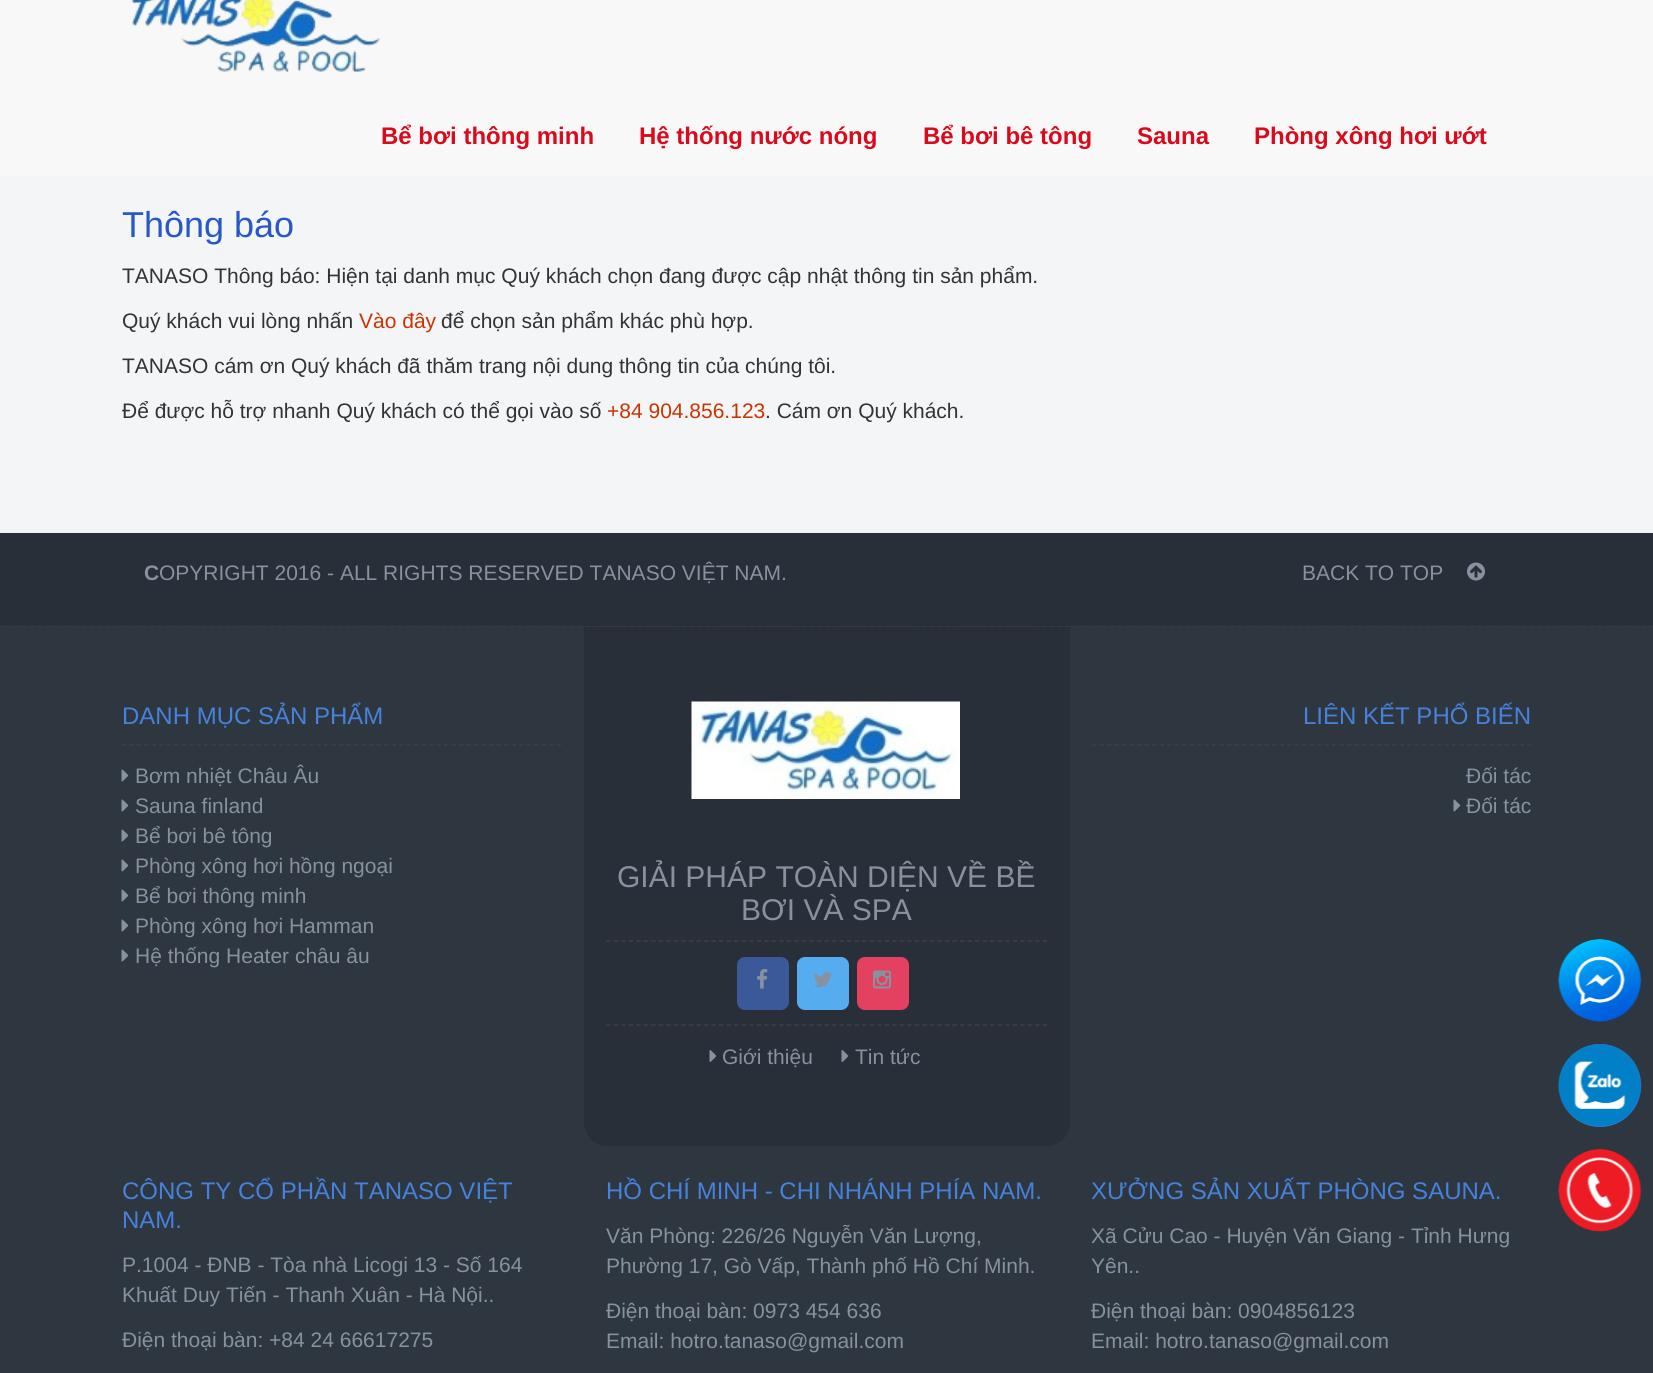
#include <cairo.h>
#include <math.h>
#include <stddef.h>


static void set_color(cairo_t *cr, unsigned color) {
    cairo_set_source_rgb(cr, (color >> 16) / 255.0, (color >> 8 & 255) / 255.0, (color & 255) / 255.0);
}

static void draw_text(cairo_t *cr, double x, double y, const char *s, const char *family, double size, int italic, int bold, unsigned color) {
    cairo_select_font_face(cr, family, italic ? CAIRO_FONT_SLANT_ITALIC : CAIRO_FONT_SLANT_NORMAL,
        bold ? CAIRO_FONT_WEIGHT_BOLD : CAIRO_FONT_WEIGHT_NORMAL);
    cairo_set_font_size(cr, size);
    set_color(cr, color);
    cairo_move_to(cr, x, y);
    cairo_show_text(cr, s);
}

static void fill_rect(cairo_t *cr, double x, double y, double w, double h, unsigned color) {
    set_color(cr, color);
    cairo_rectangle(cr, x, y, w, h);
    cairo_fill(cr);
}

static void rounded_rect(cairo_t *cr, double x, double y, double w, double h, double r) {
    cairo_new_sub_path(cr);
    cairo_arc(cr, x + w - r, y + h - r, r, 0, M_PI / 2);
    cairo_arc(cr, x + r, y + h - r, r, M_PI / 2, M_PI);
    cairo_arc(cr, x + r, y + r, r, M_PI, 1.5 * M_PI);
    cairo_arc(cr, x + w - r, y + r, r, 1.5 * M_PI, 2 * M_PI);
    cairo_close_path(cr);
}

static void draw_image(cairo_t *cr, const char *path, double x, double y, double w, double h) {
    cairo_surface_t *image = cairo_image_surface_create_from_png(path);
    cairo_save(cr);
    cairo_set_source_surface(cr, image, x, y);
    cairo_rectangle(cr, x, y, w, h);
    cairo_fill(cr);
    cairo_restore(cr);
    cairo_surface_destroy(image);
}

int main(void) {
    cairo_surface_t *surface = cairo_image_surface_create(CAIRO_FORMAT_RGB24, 1653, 1373);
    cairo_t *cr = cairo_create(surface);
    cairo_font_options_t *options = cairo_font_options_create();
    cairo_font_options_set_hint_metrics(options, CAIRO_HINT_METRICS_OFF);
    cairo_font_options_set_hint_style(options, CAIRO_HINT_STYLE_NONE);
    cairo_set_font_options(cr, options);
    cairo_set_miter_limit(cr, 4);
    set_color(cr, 0xF4F5F7);
    cairo_paint(cr);
    fill_rect(cr, 0, 0, 1653, 176, 0xF8F8F8);
    draw_image(cr, "assets/img1.png", 131, 0, 250, 72);
    draw_text(cr, 381, 144, "Bể bơi thông minh", "Liberation Sans", 24, 0, 1, 0xD90A1B);
    draw_text(cr, 639, 144, "Hệ thống nước nóng", "Liberation Sans", 24, 0, 1, 0xD90A1B);
    draw_text(cr, 923, 144, "Bể bơi bê tông", "Liberation Sans", 24, 0, 1, 0xD90A1B);
    draw_text(cr, 1137, 144, "Sauna", "Liberation Sans", 24, 0, 1, 0xD90A1B);
    draw_text(cr, 1254, 144, "Phòng xông hơi ướt", "Liberation Sans", 24, 0, 1, 0xD90A1B);
    draw_text(cr, 122, 237, "Thông báo", "Liberation Sans", 36, 0, 0, 0x2858C7);
    draw_text(cr, 122, 283, "TANASO Thông báo: Hiện tại danh mục Quý khách chọn đang được cập nhật thông tin sản phẩm.", "Liberation Sans", 21, 0, 0, 0x333333);
    draw_text(cr, 122, 328, "Quý khách vui lòng nhấn", "Liberation Sans", 21, 0, 0, 0x333333);
    draw_text(cr, 359, 328, "Vào đây", "Liberation Sans", 21, 0, 0, 0xCC3300);
    draw_text(cr, 441, 328, "để chọn sản phẩm khác phù hợp.", "Liberation Sans", 21, 0, 0, 0x333333);
    draw_text(cr, 122, 373, "TANASO cám ơn Quý khách đã thăm trang nội dung thông tin của chúng tôi.", "Liberation Sans", 21, 0, 0, 0x333333);
    draw_text(cr, 122, 418, "Để được hỗ trợ nhanh Quý khách có thể gọi vào số", "Liberation Sans", 21, 0, 0, 0x333333);
    draw_text(cr, 607, 418, "+84 904.856.123", "Liberation Sans", 21, 0, 0, 0xCC3300);
    draw_text(cr, 765, 418, ". Cám ơn Quý khách.", "Liberation Sans", 21, 0, 0, 0x333333);
    fill_rect(cr, 0, 626, 1653, 747, 0x2E363F);
    cairo_new_path(cr);
    cairo_move_to(cr, 0, 626);
    cairo_line_to(cr, 1653, 626);
    set_color(cr, 0x403E44);
    cairo_set_line_width(cr, 1.5);
    cairo_set_dash(cr, (double[]){4.5, 3}, 2, 0);
    cairo_stroke(cr);
    fill_rect(cr, 0, 533, 1653, 93, 0x292F38);
    draw_text(cr, 144, 580, "C", "Liberation Sans", 21, 0, 1, 0x87919F);
    draw_text(cr, 159, 580, "OPYRIGHT 2016 - ALL RIGHTS RESERVED TANASO VIỆT NAM.", "Liberation Sans", 21, 0, 0, 0x87919F);
    draw_text(cr, 1302, 580, "BACK TO TOP", "Liberation Sans", 21, 0, 0, 0x87919F);
    draw_image(cr, "assets/img2.png", 1467, 562, 18, 19);
    draw_text(cr, 122, 724, "DANH MỤC SẢN PHẨM", "Liberation Sans", 24, 0, 0, 0x4582DC);
    cairo_new_path(cr);
    cairo_move_to(cr, 121.5, 745);
    cairo_line_to(cr, 561, 745);
    set_color(cr, 0x403E44);
    cairo_stroke(cr);
    draw_image(cr, "assets/img3.png", 121, 769, 8, 13);
    draw_text(cr, 135, 783, "Bơm nhiệt Châu Âu", "Liberation Sans", 21, 0, 0, 0x87919F);
    draw_image(cr, "assets/img3.png", 121, 799, 8, 13);
    draw_text(cr, 135, 813, "Sauna finland", "Liberation Sans", 21, 0, 0, 0x87919F);
    draw_image(cr, "assets/img3.png", 121, 829, 8, 13);
    draw_text(cr, 135, 843, "Bể bơi bê tông", "Liberation Sans", 21, 0, 0, 0x87919F);
    draw_image(cr, "assets/img3.png", 121, 859, 8, 13);
    draw_text(cr, 135, 873, "Phòng xông hơi hồng ngoại", "Liberation Sans", 21, 0, 0, 0x87919F);
    draw_image(cr, "assets/img3.png", 121, 889, 8, 13);
    draw_text(cr, 135, 903, "Bể bơi thông minh", "Liberation Sans", 21, 0, 0, 0x87919F);
    draw_image(cr, "assets/img3.png", 121, 919, 8, 13);
    draw_text(cr, 135, 933, "Phòng xông hơi Hamman", "Liberation Sans", 21, 0, 0, 0x87919F);
    draw_image(cr, "assets/img3.png", 121, 949, 8, 13);
    draw_text(cr, 135, 963, "Hệ thống Heater châu âu", "Liberation Sans", 21, 0, 0, 0x87919F);
    draw_text(cr, 1303, 724, "LIÊN KẾT PHỔ BIẾN", "Liberation Sans", 24, 0, 0, 0x4582DC);
    cairo_new_path(cr);
    cairo_move_to(cr, 1092, 745);
    cairo_line_to(cr, 1531.5, 745);
    set_color(cr, 0x403E44);
    cairo_stroke(cr);
    draw_text(cr, 1466, 783, "Đối tác", "Liberation Sans", 21, 0, 0, 0x87919F);
    draw_image(cr, "assets/img3.png", 1453, 799, 8, 13);
    draw_text(cr, 1466, 813, "Đối tác", "Liberation Sans", 21, 0, 0, 0x87919F);
    set_color(cr, 0x292F38);
    cairo_new_path(cr);
    cairo_move_to(cr, 584, 627);
    cairo_line_to(cr, 1070, 627);
    cairo_line_to(cr, 1070, 1123);
    cairo_curve_to(cr, 1070, 1135.5, 1059.5, 1146, 1047, 1146);
    cairo_line_to(cr, 607, 1146);
    cairo_curve_to(cr, 594.5, 1146, 584, 1135.5, 584, 1123);
    cairo_close_path(cr);
    cairo_fill(cr);
    draw_image(cr, "assets/img4.png", 691, 701, 269, 98);
    draw_text(cr, 617, 887, "GIẢI PHÁP TOÀN DIỆN VỀ BỀ", "Liberation Sans", 30, 0, 0, 0x87919F);
    draw_text(cr, 741, 920, "BƠI VÀ SPA", "Liberation Sans", 30, 0, 0, 0x87919F);
    cairo_new_path(cr);
    cairo_move_to(cr, 606, 941);
    cairo_line_to(cr, 1047, 941);
    set_color(cr, 0x403E44);
    cairo_set_dash(cr, (double[]){4.5, 3.03}, 2, 0);
    cairo_stroke(cr);
    set_color(cr, 0x3B5999);
    rounded_rect(cr, 737, 957, 52, 53, 8);
    cairo_fill(cr);
    draw_image(cr, "assets/img5.png", 757, 969, 11, 20);
    set_color(cr, 0x55ACEE);
    rounded_rect(cr, 797, 957, 52, 53, 8);
    cairo_fill(cr);
    draw_image(cr, "assets/img6.png", 814, 972, 18, 15);
    set_color(cr, 0xE4405F);
    rounded_rect(cr, 857, 957, 52, 53, 8);
    cairo_fill(cr);
    draw_image(cr, "assets/img7.png", 873, 970, 18, 19);
    cairo_new_path(cr);
    cairo_move_to(cr, 606, 1025);
    cairo_line_to(cr, 1047, 1025);
    set_color(cr, 0x403E44);
    cairo_stroke(cr);
    draw_image(cr, "assets/img8.png", 709, 1050, 8, 12);
    draw_text(cr, 722, 1064, "Giới thiệu", "Liberation Sans", 21, 0, 0, 0x87919F);
    draw_image(cr, "assets/img8.png", 841, 1050, 8, 12);
    draw_text(cr, 855, 1064, "Tin tức", "Liberation Sans", 21, 0, 0, 0x87919F);
    draw_text(cr, 122, 1199, "CÔNG TY CỔ PHẦN TANASO VIỆT", "Liberation Sans", 24, 0, 0, 0x4582DC);
    draw_text(cr, 122, 1228, "NAM.", "Liberation Sans", 24, 0, 0, 0x4582DC);
    draw_text(cr, 122, 1272, "P.1004 - ĐNB - Tòa nhà Licogi 13 - Số 164", "Liberation Sans", 21, 0, 0, 0x87919F);
    draw_text(cr, 122, 1302, "Khuất Duy Tiến - Thanh Xuân - Hà Nội..", "Liberation Sans", 21, 0, 0, 0x87919F);
    draw_text(cr, 122, 1347, "Điện thoại bàn: +84 24 66617275", "Liberation Sans", 21, 0, 0, 0x87919F);
    draw_text(cr, 606, 1199, "HỒ CHÍ MINH - CHI NHÁNH PHÍA NAM.", "Liberation Sans", 24, 0, 0, 0x4582DC);
    draw_text(cr, 606, 1243, "Văn Phòng: 226/26 Nguyễn Văn Lượng,", "Liberation Sans", 21, 0, 0, 0x87919F);
    draw_text(cr, 606, 1273, "Phường 17, Gò Vấp, Thành phố Hồ Chí Minh.", "Liberation Sans", 21, 0, 0, 0x87919F);
    draw_text(cr, 606, 1318, "Điện thoại bàn: 0973 454 636", "Liberation Sans", 21, 0, 0, 0x87919F);
    draw_text(cr, 606, 1348, "Email: hotro.tanaso@gmail.com", "Liberation Sans", 21, 0, 0, 0x87919F);
    draw_text(cr, 1091, 1199, "XƯỞNG SẢN XUẤT PHÒNG SAUNA.", "Liberation Sans", 24, 0, 0, 0x4582DC);
    draw_text(cr, 1091, 1243, "Xã Cửu Cao - Huyện Văn Giang - Tỉnh Hưng", "Liberation Sans", 21, 0, 0, 0x87919F);
    draw_text(cr, 1091, 1273, "Yên..", "Liberation Sans", 21, 0, 0, 0x87919F);
    draw_text(cr, 1091, 1318, "Điện thoại bàn: 0904856123", "Liberation Sans", 21, 0, 0, 0x87919F);
    draw_text(cr, 1091, 1348, "Email: hotro.tanaso@gmail.com", "Liberation Sans", 21, 0, 0, 0x87919F);
    draw_image(cr, "assets/img9.png", 1558, 939, 84, 83);
    set_color(cr, 0x3178DF);
    rounded_rect(cr, 1559, 1044, 82, 83, 41);
    cairo_fill(cr);
    draw_image(cr, "assets/img10.png", 1558, 1044, 84, 83);
    draw_image(cr, "assets/img11.png", 1558, 1149, 84, 83);
    cairo_surface_write_to_png(surface, "output.png");
    cairo_font_options_destroy(options);
    cairo_destroy(cr);
    cairo_surface_destroy(surface);
    return 0;
}
